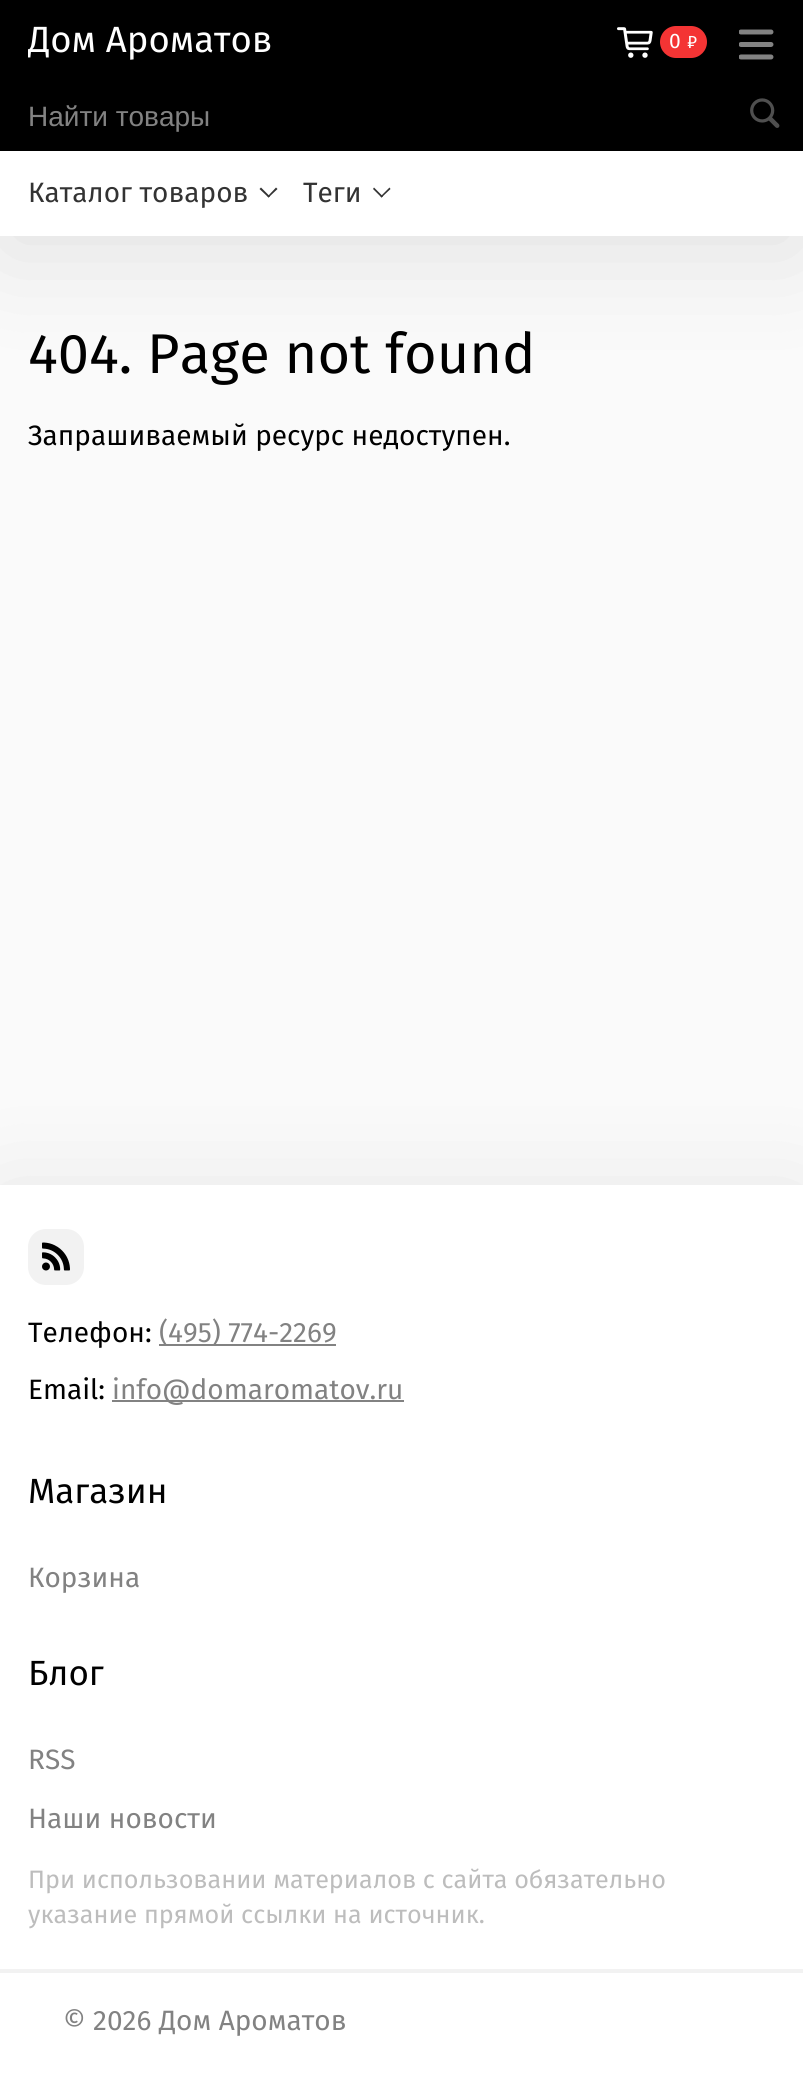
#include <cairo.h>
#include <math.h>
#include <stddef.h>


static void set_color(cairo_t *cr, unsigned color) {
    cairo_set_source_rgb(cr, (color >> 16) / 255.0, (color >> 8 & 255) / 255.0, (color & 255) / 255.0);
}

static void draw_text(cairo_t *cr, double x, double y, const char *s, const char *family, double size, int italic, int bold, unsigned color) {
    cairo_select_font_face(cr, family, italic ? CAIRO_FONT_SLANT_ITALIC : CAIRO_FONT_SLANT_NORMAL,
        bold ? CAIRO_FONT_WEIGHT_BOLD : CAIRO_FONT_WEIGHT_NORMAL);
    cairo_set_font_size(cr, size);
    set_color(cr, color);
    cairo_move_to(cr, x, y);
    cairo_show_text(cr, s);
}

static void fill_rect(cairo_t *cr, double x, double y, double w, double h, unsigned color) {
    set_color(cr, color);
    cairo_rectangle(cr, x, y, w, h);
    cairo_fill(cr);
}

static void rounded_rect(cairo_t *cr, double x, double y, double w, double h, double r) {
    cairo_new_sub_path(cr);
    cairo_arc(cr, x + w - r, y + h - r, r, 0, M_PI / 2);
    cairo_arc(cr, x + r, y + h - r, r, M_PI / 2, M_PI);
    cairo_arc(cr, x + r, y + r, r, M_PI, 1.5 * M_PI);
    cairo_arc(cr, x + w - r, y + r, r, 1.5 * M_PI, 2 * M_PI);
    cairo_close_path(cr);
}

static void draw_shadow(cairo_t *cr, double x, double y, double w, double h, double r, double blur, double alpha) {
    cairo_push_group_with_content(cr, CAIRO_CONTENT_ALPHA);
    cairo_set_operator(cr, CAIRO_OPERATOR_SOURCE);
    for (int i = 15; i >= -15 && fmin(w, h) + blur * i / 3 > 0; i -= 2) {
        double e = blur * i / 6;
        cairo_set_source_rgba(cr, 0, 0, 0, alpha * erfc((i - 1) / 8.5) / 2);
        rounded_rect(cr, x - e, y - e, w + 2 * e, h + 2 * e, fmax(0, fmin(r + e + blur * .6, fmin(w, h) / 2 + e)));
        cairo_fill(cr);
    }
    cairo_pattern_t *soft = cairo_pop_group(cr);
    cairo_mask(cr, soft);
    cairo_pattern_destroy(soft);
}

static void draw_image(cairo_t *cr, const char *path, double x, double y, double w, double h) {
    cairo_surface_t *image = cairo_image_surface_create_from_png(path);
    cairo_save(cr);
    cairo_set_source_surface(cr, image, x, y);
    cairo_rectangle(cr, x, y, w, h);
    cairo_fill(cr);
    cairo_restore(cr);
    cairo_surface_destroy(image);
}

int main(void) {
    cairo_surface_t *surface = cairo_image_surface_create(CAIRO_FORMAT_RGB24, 803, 2098);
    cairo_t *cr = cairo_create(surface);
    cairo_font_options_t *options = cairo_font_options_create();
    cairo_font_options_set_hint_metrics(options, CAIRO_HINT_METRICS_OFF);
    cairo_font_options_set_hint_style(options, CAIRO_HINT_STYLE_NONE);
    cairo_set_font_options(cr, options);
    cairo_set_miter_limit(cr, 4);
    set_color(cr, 0xFAFAFA);
    cairo_paint(cr);
    set_color(cr, 0x000000);
    draw_shadow(cr, 0, 18, 803, 236, 0, 52.5, 0.1);
    fill_rect(cr, 0, 151, 803, 85, 0xFFFFFF);
    fill_rect(cr, 0, 0, 803, 151, 0x000000);
    cairo_save(cr);
    cairo_rectangle(cr, 28, 21, 243, 42);
    cairo_clip(cr);
    draw_text(cr, 28, 52, "Дом Ароматов", "Fira Sans", 36.5, 0, 0, 0xFFFFFF);
    cairo_restore(cr);
    draw_image(cr, "assets/img1.png", 617, 27, 36, 31);
    set_color(cr, 0xF43434);
    rounded_rect(cr, 660, 26, 47, 32, 16);
    cairo_fill(cr);
    draw_text(cr, 669, 48, "0", "Fira Sans", 21, 0, 0, 0xFFFFFF);
    draw_text(cr, 687, 48, "₽", "Fira Sans", 18, 0, 0, 0xFFFFFF);
    draw_image(cr, "assets/img2.png", 739, 29, 35, 31);
    draw_text(cr, 28, 126, "Найти товары", "Liberation Sans", 28, 0, 0, 0x828282);
    draw_image(cr, "assets/img3.png", 750, 98, 30, 30);
    draw_text(cr, 28, 202, "Каталог товаров", "Fira Sans", 28, 0, 0, 0x333333);
    cairo_new_path(cr);
    cairo_move_to(cr, 276, 187.5);
    cairo_line_to(cr, 277.5, 189);
    cairo_line_to(cr, 268.5, 197.5);
    cairo_line_to(cr, 267.5, 196.5);
    cairo_close_path(cr);
    cairo_fill(cr);
    cairo_new_path(cr);
    cairo_move_to(cr, 261, 187.5);
    cairo_line_to(cr, 270, 196.5);
    cairo_line_to(cr, 268.5, 197.5);
    cairo_line_to(cr, 259.5, 189);
    cairo_close_path(cr);
    cairo_fill(cr);
    draw_text(cr, 303, 202, "Теги", "Fira Sans", 28, 0, 0, 0x333333);
    cairo_new_path(cr);
    cairo_move_to(cr, 389.5, 187.5);
    cairo_line_to(cr, 390.5, 189);
    cairo_line_to(cr, 381.5, 197.5);
    cairo_line_to(cr, 380.5, 196.5);
    cairo_close_path(cr);
    cairo_fill(cr);
    cairo_new_path(cr);
    cairo_move_to(cr, 374, 187.5);
    cairo_line_to(cr, 383, 196.5);
    cairo_line_to(cr, 381.5, 197.5);
    cairo_line_to(cr, 373, 189);
    cairo_close_path(cr);
    cairo_fill(cr);
    draw_text(cr, 28, 373, "404. Page not found", "Fira Sans", 56, 0, 0, 0x000000);
    draw_text(cr, 28, 445, "Запрашиваемый ресурс недоступен.", "Fira Sans", 28, 0, 0, 0x000000);
    set_color(cr, 0x000000);
    draw_shadow(cr, 0, 1202, 803, 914, 0, 52.5, 0.1);
    fill_rect(cr, 0, 1185, 803, 913, 0xFFFFFF);
    set_color(cr, 0xF2F2F2);
    rounded_rect(cr, 28, 1229, 56, 56, 18);
    cairo_fill(cr);
    draw_image(cr, "assets/img4.png", 42, 1242, 28, 29);
    draw_text(cr, 28, 1342, "Телефон:", "Fira Sans", 28, 0, 0, 0x000000);
    fill_rect(cr, 159, 1344, 177, 2, 0x828282);
    draw_text(cr, 159, 1342, "(495) 774-2269", "Fira Sans", 28, 0, 0, 0x828282);
    draw_text(cr, 28, 1399, "Email:", "Fira Sans", 28, 0, 0, 0x000000);
    fill_rect(cr, 112, 1400, 292, 2, 0x828282);
    draw_text(cr, 112, 1399, "info@domaromatov.ru", "Fira Sans", 28, 0, 0, 0x828282);
    draw_text(cr, 28, 1503, "Магазин", "Fira Sans", 35, 0, 0, 0x000000);
    draw_text(cr, 28, 1587, "Корзина", "Fira Sans", 28, 0, 0, 0x828282);
    draw_text(cr, 28, 1685, "Блог", "Fira Sans", 35, 0, 0, 0x000000);
    draw_text(cr, 28, 1769, "RSS", "Fira Sans", 28, 0, 0, 0x828282);
    draw_text(cr, 28, 1828, "Наши новости", "Fira Sans", 28, 0, 0, 0x828282);
    draw_text(cr, 28, 1888, "При использовании материалов с сайта обязательно", "Fira Sans", 25.2, 0, 0, 0xBDBDBD);
    draw_text(cr, 28, 1923, "указание прямой ссылки на источник.", "Fira Sans", 25.2, 0, 0, 0xBDBDBD);
    fill_rect(cr, 0, 1969, 803, 4, 0xF2F2F2);
    draw_text(cr, 63, 2030, "© 2026", "Fira Sans", 28, 0, 0, 0x828282);
    draw_text(cr, 159, 2030, "Дом Ароматов", "Fira Sans", 28, 0, 0, 0x828282);
    cairo_surface_write_to_png(surface, "output.png");
    cairo_font_options_destroy(options);
    cairo_destroy(cr);
    cairo_surface_destroy(surface);
    return 0;
}
